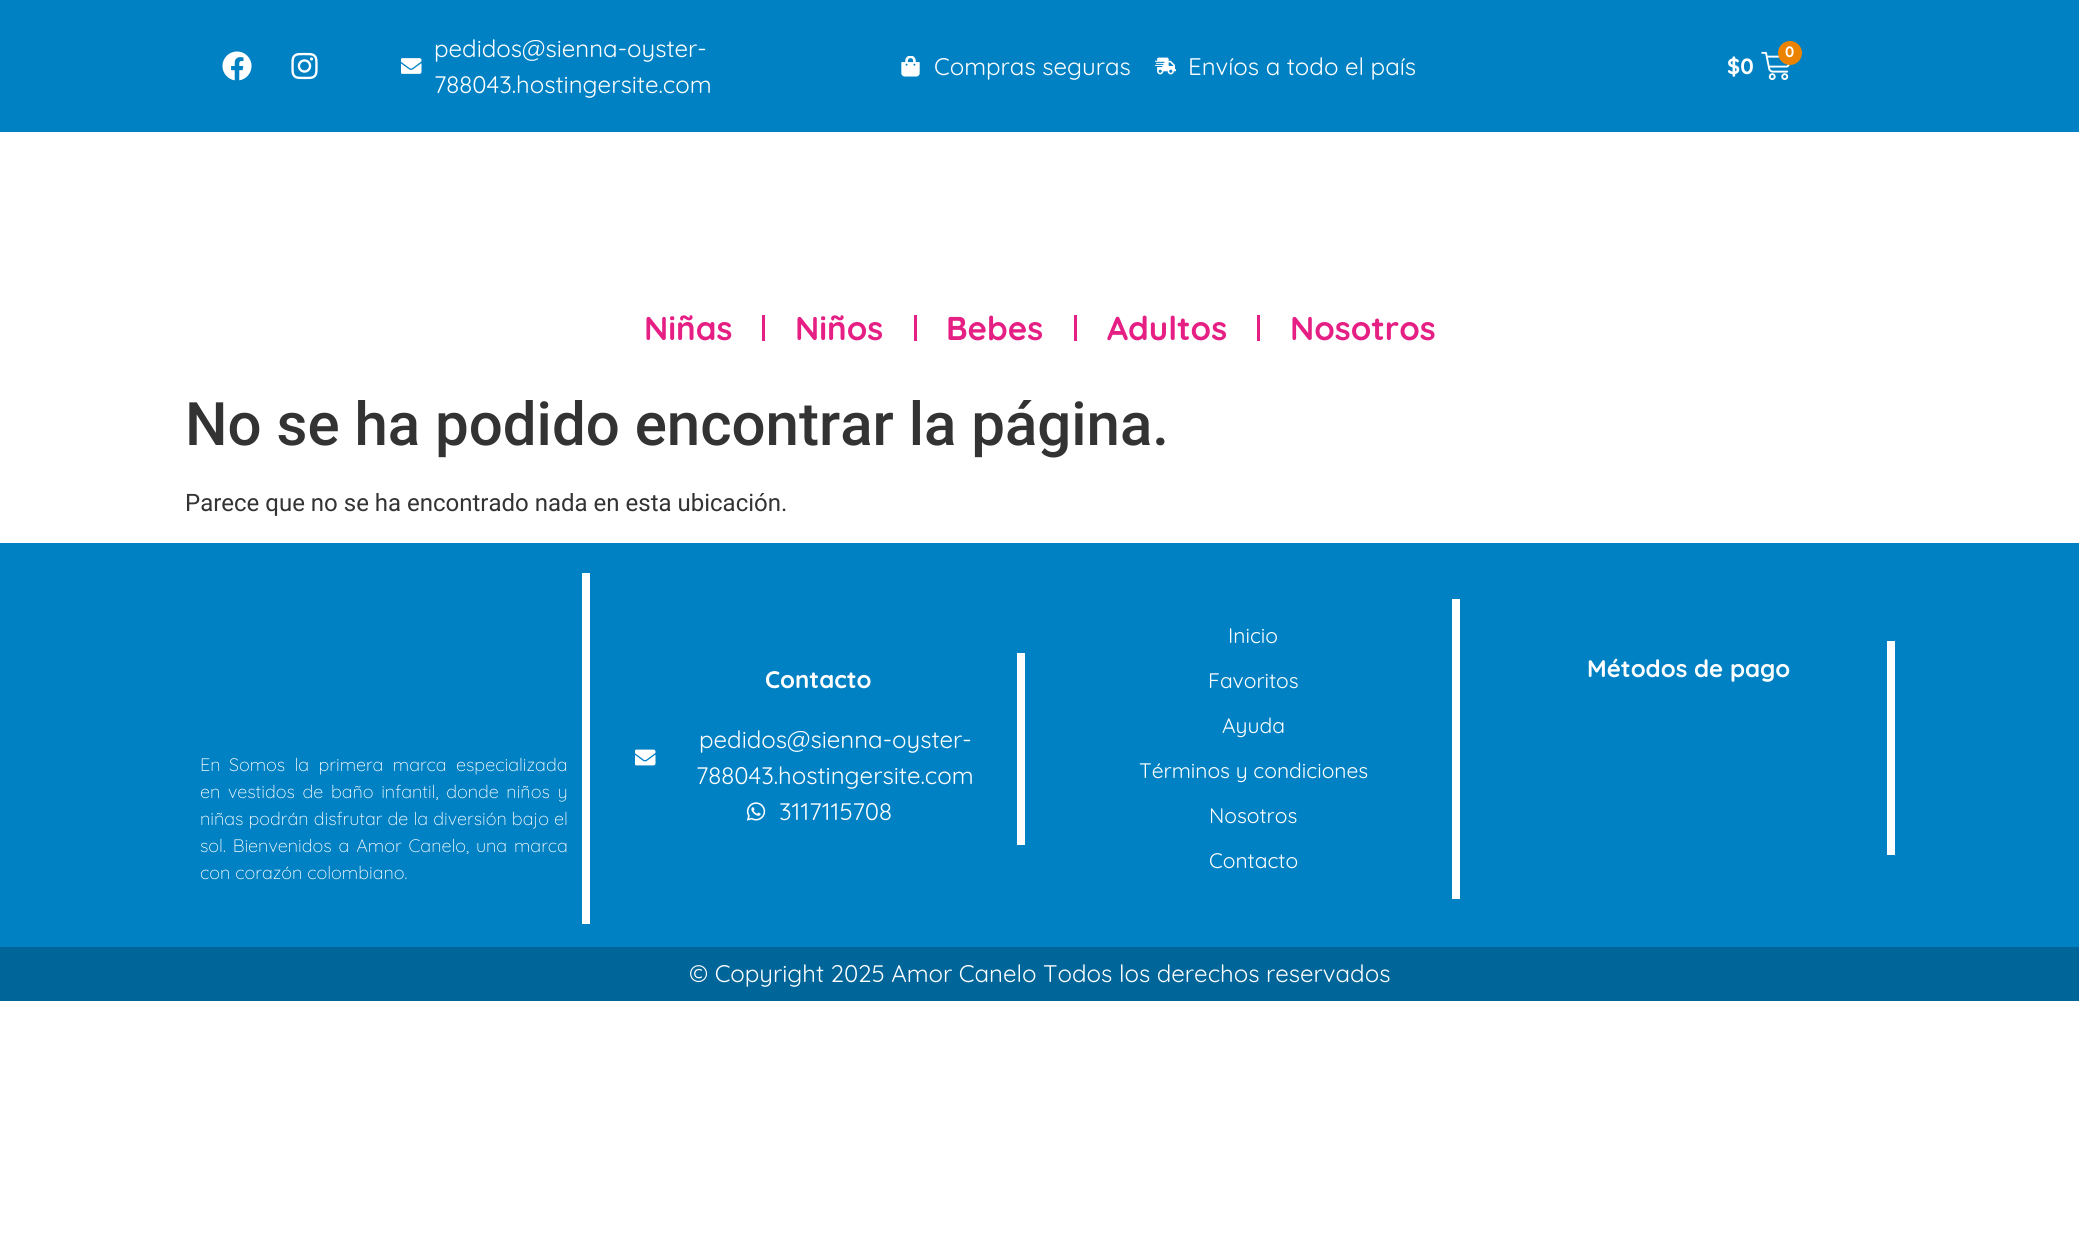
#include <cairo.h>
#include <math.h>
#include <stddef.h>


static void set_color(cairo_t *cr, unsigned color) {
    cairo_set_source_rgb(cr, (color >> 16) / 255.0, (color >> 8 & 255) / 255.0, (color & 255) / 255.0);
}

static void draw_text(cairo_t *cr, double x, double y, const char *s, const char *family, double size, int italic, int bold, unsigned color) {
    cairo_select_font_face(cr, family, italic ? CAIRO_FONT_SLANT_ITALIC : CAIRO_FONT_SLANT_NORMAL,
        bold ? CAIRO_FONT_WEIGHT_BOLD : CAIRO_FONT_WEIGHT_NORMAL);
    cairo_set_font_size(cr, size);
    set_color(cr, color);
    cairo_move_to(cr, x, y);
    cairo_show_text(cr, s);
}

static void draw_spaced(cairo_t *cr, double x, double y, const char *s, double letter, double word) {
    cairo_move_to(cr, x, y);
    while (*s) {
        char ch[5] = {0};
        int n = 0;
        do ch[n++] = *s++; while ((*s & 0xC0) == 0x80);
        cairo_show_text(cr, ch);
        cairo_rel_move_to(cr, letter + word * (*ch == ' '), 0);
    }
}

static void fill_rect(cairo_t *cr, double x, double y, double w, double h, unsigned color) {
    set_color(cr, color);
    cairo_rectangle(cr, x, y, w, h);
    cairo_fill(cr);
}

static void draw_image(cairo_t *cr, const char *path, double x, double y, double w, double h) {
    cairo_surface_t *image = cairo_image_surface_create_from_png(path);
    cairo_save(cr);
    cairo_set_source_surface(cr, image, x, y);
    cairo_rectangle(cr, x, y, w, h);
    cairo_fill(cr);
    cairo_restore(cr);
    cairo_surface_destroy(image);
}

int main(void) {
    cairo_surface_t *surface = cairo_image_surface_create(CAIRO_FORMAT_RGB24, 2079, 1259);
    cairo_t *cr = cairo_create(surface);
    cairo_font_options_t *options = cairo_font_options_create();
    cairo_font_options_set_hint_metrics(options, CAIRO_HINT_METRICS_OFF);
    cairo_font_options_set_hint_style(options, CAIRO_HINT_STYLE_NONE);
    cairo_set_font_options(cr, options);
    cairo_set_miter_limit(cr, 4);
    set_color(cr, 0xFFFFFF);
    cairo_paint(cr);
    fill_rect(cr, 0, 0, 2079, 132, 0x0081C4);
    draw_image(cr, "assets/img1.png", 222, 51, 30, 30);
    draw_image(cr, "assets/img2.png", 291, 52, 27, 28);
    draw_image(cr, "assets/img3.png", 401, 58, 21, 16);
    draw_text(cr, 434, 57, "pedidos@sienna-oyster-", "Quicksand", 24, 0, 0, 0xFFFFFF);
    draw_text(cr, 434, 93, "788043.hostingersite.com", "Quicksand", 24, 0, 0, 0xFFFFFF);
    draw_image(cr, "assets/img4.png", 901, 56, 19, 21);
    draw_text(cr, 934, 75, "Compras seguras", "Quicksand", 24, 0, 0, 0xFFFFFF);
    draw_image(cr, "assets/img5.png", 1155, 57, 21, 18);
    draw_text(cr, 1188, 75, "Envíos a todo el país", "Quicksand", 24, 0, 0, 0xFFFFFF);
    draw_image(cr, "assets/img6.png", 1761, 51, 29, 30);
    set_color(cr, 0xEB8300);
    cairo_arc(cr, 1790, 53, 12, 0, 2 * M_PI);
    cairo_fill(cr);
    draw_text(cr, 1785, 57, "0", "Quicksand", 15, 0, 1, 0xFFFFFF);
    draw_text(cr, 1727, 74, "$0", "Quicksand", 22, 0, 1, 0xFFFFFF);
    draw_text(cr, 644, 340, "Niñas", "Quicksand", 33, 0, 1, 0xE51F83);
    fill_rect(cr, 762, 315, 3, 26, 0xE51F83);
    draw_text(cr, 795, 340, "Niños", "Quicksand", 33, 0, 1, 0xE51F83);
    fill_rect(cr, 914, 315, 3, 26, 0xE51F83);
    draw_text(cr, 946, 340, "Bebes", "Quicksand", 33, 0, 1, 0xE51F83);
    fill_rect(cr, 1074, 315, 3, 26, 0xE51F83);
    draw_text(cr, 1107, 340, "Adultos", "Quicksand", 33, 0, 1, 0xE51F83);
    fill_rect(cr, 1257, 315, 3, 26, 0xE51F83);
    draw_text(cr, 1290, 340, "Nosotros", "Quicksand", 33, 0, 1, 0xE51F83);
    draw_text(cr, 185, 445, "No se ha podido encontrar la página.", "Roboto Medium", 60, 0, 0, 0x333333);
    draw_text(cr, 185, 511, "Parece que no se ha encontrado nada en esta ubicación.", "Roboto", 24, 0, 0, 0x333333);
    fill_rect(cr, 0, 543, 2079, 404, 0x0081C4);
    fill_rect(cr, 582, 573, 8, 351, 0xFFFFFF);
    draw_text(cr, 200, 771, "En", "Quicksand Light", 18, 0, 0, 0xFFFFFF);
    draw_spaced(cr, 229, 771, "Somos la primera marca especializada", 0, 4.5);
    draw_spaced(cr, 200, 798, "en vestidos de baño infantil, donde niños y", 0, 2.75);
    draw_spaced(cr, 200, 825, "niñas podrán disfrutar de la diversión bajo el", 0, 0.25);
    draw_spaced(cr, 200, 852, "sol. Bienvenidos a Amor Canelo, una marca", 0, 2);
    draw_text(cr, 200, 879, "con corazón colombiano.", "Quicksand Light", 18, 0, 0, 0xFFFFFF);
    fill_rect(cr, 1017, 653, 8, 192, 0xFFFFFF);
    draw_text(cr, 765, 688, "Contacto", "Quicksand", 24, 0, 1, 0xFFFFFF);
    draw_image(cr, "assets/img7.png", 635, 749, 21, 17);
    draw_text(cr, 699, 748, "pedidos@sienna-oyster-", "Quicksand", 24, 0, 0, 0xFFFFFF);
    draw_text(cr, 696, 784, "788043.hostingersite.com", "Quicksand", 24, 0, 0, 0xFFFFFF);
    draw_image(cr, "assets/img8.png", 746, 802, 20, 19);
    draw_text(cr, 779, 820, "3117115708", "Quicksand", 24, 0, 0, 0xFFFFFF);
    fill_rect(cr, 1452, 599, 8, 300, 0xFFFFFF);
    draw_text(cr, 1228, 643, "Inicio", "Quicksand", 21, 0, 0, 0xFFFFFF);
    draw_text(cr, 1208, 688, "Favoritos", "Quicksand", 21, 0, 0, 0xFFFFFF);
    draw_text(cr, 1222, 733, "Ayuda", "Quicksand", 21, 0, 0, 0xFFFFFF);
    draw_text(cr, 1139, 778, "Términos y condiciones", "Quicksand", 21, 0, 0, 0xFFFFFF);
    draw_text(cr, 1209, 823, "Nosotros", "Quicksand", 21, 0, 0, 0xFFFFFF);
    draw_text(cr, 1209, 868, "Contacto", "Quicksand", 21, 0, 0, 0xFFFFFF);
    fill_rect(cr, 1887, 641, 8, 214, 0xFFFFFF);
    draw_text(cr, 1587, 677, "Métodos de pago", "Quicksand", 24, 0, 1, 0xFFFFFF);
    fill_rect(cr, 0, 947, 2079, 54, 0x006599);
    draw_text(cr, 689, 982, "© Copyright 2025 Amor Canelo Todos los derechos reservados", "Quicksand", 24, 0, 0, 0xFFFFFF);
    cairo_surface_write_to_png(surface, "output.png");
    cairo_font_options_destroy(options);
    cairo_destroy(cr);
    cairo_surface_destroy(surface);
    return 0;
}
